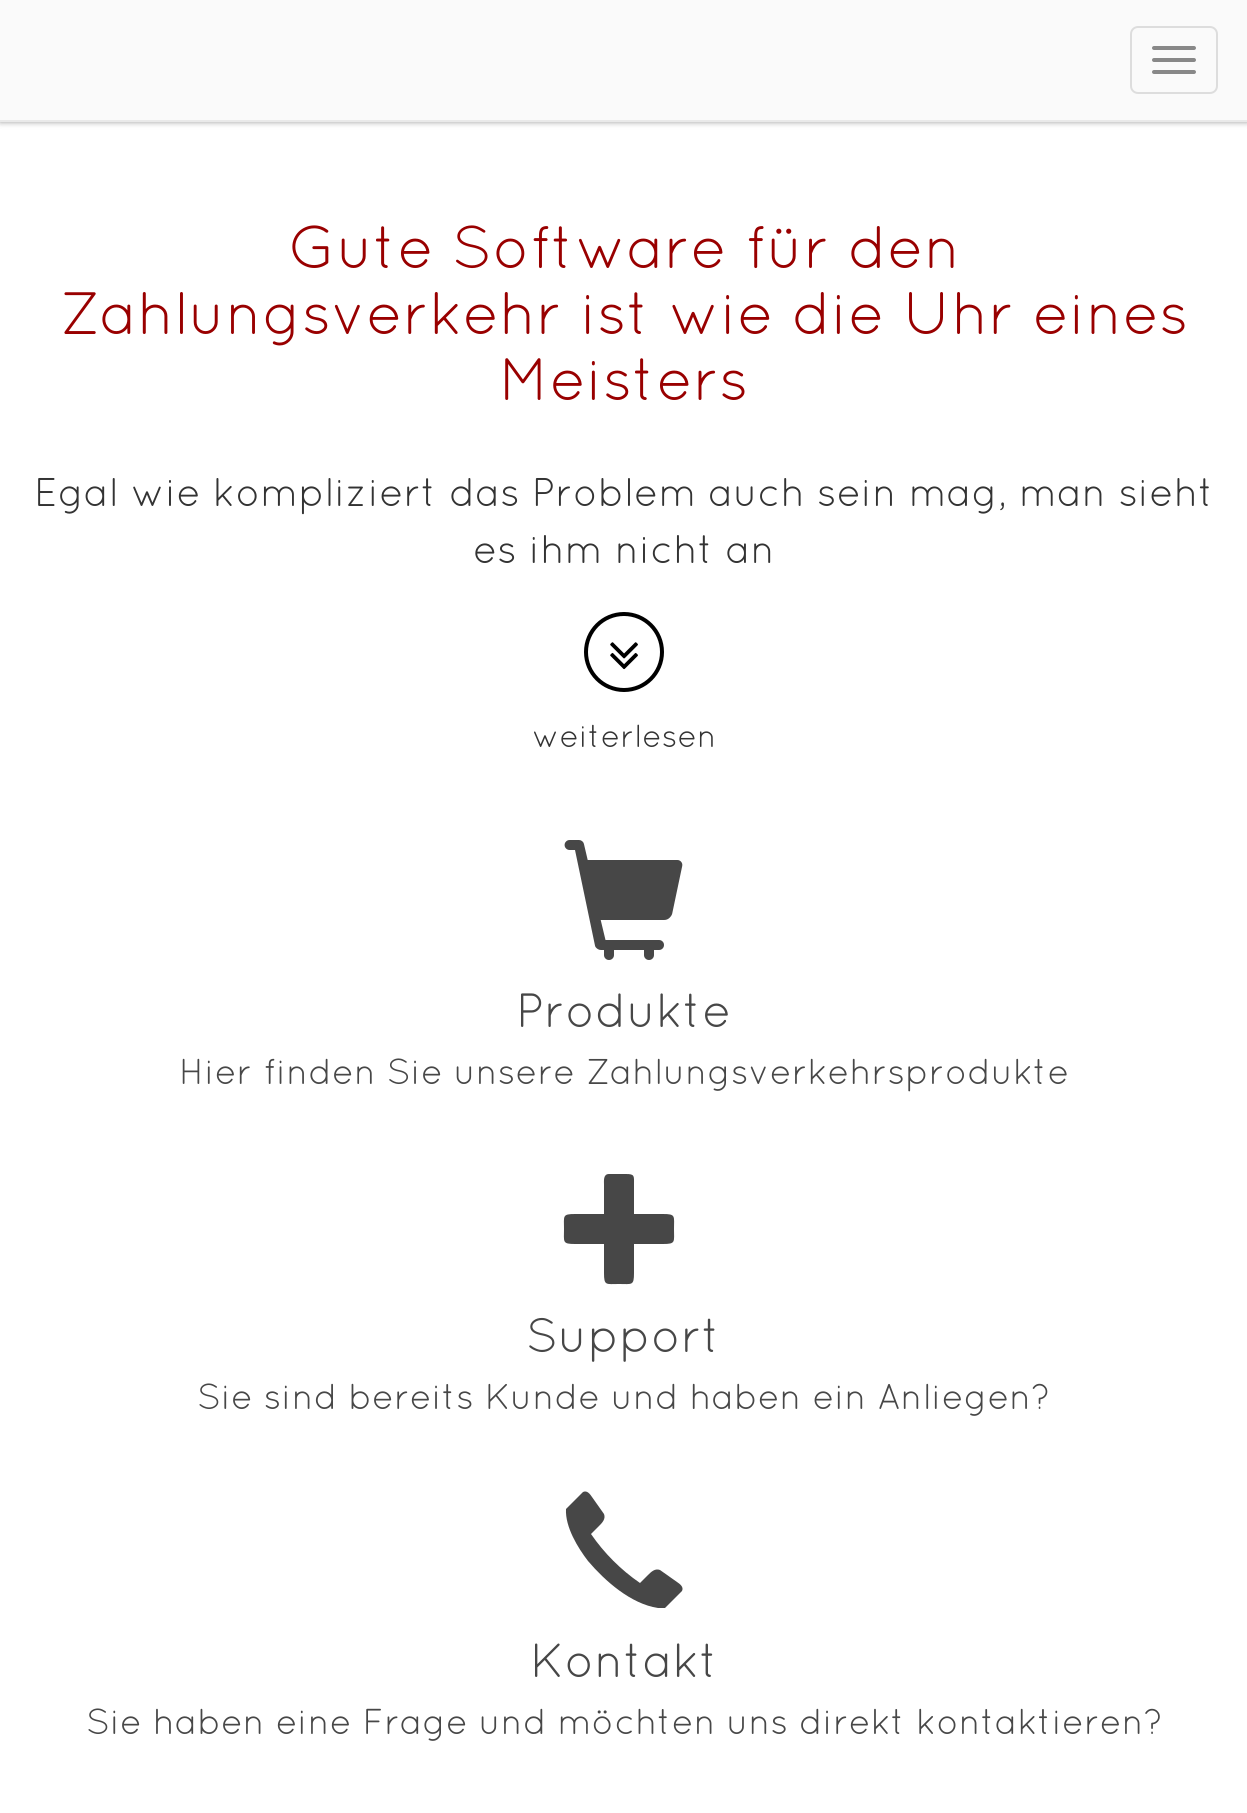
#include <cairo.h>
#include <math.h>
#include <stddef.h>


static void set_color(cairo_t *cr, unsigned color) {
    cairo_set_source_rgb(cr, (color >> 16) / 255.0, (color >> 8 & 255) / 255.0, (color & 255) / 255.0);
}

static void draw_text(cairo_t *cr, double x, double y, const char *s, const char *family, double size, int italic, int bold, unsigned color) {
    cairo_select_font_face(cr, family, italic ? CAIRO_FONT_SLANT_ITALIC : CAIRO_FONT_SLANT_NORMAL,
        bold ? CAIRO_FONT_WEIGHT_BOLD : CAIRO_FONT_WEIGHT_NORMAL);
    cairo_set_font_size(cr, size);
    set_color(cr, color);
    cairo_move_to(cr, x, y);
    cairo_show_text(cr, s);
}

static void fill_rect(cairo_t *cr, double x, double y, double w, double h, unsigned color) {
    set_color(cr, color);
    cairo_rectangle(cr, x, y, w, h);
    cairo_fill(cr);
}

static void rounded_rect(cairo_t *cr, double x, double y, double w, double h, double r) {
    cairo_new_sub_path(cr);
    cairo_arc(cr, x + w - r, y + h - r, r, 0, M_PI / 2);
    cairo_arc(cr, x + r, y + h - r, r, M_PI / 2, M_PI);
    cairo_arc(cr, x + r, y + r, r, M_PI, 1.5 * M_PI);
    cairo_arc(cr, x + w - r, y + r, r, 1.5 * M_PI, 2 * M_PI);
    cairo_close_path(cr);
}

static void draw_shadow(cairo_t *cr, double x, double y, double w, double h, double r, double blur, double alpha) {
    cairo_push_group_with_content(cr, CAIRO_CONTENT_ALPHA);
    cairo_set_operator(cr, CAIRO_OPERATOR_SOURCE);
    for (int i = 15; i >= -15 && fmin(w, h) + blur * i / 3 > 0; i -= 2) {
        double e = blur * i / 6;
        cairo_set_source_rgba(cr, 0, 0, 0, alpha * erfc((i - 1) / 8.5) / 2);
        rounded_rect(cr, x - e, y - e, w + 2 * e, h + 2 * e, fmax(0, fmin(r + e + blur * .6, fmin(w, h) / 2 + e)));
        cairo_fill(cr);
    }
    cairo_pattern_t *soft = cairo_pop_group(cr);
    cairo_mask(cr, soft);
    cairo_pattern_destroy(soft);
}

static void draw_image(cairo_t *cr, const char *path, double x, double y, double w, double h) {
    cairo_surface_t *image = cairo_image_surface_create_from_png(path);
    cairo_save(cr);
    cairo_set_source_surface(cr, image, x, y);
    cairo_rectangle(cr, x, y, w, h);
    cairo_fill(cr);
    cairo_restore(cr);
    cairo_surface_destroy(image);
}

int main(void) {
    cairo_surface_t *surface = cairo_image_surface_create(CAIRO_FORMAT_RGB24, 1247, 1813);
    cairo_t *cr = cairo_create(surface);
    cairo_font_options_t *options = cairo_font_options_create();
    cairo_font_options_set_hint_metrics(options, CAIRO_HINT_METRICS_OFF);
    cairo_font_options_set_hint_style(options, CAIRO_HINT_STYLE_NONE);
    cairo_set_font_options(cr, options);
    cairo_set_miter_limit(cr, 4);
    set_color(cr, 0xFFFFFF);
    cairo_paint(cr);
    set_color(cr, 0x000000);
    draw_shadow(cr, 0, 0, 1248, 122, 0, 3, 0.4);
    fill_rect(cr, 0, 0, 1247, 120, 0xFAFAFA);
    fill_rect(cr, 0, 120, 1247, 2, 0xE9E9E9);
    rounded_rect(cr, 1131, 27, 86, 66, 7);
    set_color(cr, 0xDDDDDD);
    cairo_stroke(cr);
    set_color(cr, 0x888888);
    rounded_rect(cr, 1152, 46, 44, 4, 2);
    cairo_fill(cr);
    rounded_rect(cr, 1152, 58, 44, 4, 2);
    cairo_fill(cr);
    rounded_rect(cr, 1152, 70, 44, 4, 2);
    cairo_fill(cr);
    draw_text(cr, 288, 268, "Gute Software für den", "Quicksand", 60, 0, 0, 0x990000);
    draw_text(cr, 60, 334, "Zahlungsverkehr ist wie die Uhr eines", "Quicksand", 60, 0, 0, 0x990000);
    draw_text(cr, 499, 400, "Meisters", "Quicksand", 60, 0, 0, 0x990000);
    draw_text(cr, 34, 506, "Egal wie kompliziert das Problem auch sein mag, man sieht", "Quicksand", 40, 0, 0, 0x333333);
    draw_text(cr, 473, 563, "es ihm nicht an", "Quicksand", 40, 0, 0, 0x333333);
    cairo_new_path(cr);
    cairo_arc(cr, 624, 652, 38, 0, 2 * M_PI);
    set_color(cr, 0x000000);
    cairo_set_line_width(cr, 4);
    cairo_stroke(cr);
    draw_image(cr, "assets/img1.png", 610, 642, 28, 28);
    draw_text(cr, 532, 747, "weiterlesen", "Quicksand", 32, 0, 0, 0x333333);
    draw_image(cr, "assets/img2.png", 564, 840, 119, 120);
    draw_text(cr, 516, 1027, "Produkte", "Quicksand", 48, 0, 0, 0x474747);
    draw_text(cr, 179, 1084, "Hier finden Sie unsere Zahlungsverkehrsprodukte", "Quicksand", 36, 0, 0, 0x474747);
    cairo_new_path(cr);
    cairo_move_to(cr, 609, 1174);
    cairo_line_to(cr, 626, 1174);
    cairo_curve_to(cr, 635, 1174, 634, 1176, 634, 1185);
    cairo_line_to(cr, 634, 1214);
    cairo_line_to(cr, 663, 1214);
    cairo_curve_to(cr, 676, 1214, 674, 1216, 674, 1229);
    cairo_curve_to(cr, 674, 1242, 676, 1244, 663, 1244);
    cairo_line_to(cr, 634, 1244);
    cairo_line_to(cr, 634, 1273);
    cairo_curve_to(cr, 634, 1286, 632, 1284, 619, 1284);
    cairo_curve_to(cr, 606, 1284, 604, 1286, 604, 1273);
    cairo_line_to(cr, 604, 1244);
    cairo_line_to(cr, 575, 1244);
    cairo_curve_to(cr, 562, 1244, 564, 1242, 564, 1229);
    cairo_curve_to(cr, 564, 1216, 562, 1214, 575, 1214);
    cairo_line_to(cr, 604, 1214);
    cairo_line_to(cr, 604, 1185);
    cairo_curve_to(cr, 604, 1181, 603, 1174, 609, 1174);
    cairo_close_path(cr);
    cairo_fill(cr);
    draw_text(cr, 526, 1352, "Support", "Quicksand", 48, 0, 0, 0x474747);
    draw_text(cr, 197, 1409, "Sie sind bereits Kunde und haben ein Anliegen?", "Quicksand", 36, 0, 0, 0x474747);
    cairo_new_path(cr);
    cairo_move_to(cr, 566, 1509);
    cairo_line_to(cr, 583, 1492);
    cairo_curve_to(cr, 587, 1490, 590, 1494, 592, 1497);
    cairo_line_to(cr, 604, 1514);
    cairo_curve_to(cr, 606, 1519, 602, 1523, 599, 1526);
    cairo_line_to(cr, 591, 1534);
    cairo_curve_to(cr, 604, 1553, 621, 1570, 640, 1583);
    cairo_line_to(cr, 648, 1575);
    cairo_curve_to(cr, 651, 1572, 655, 1568, 660, 1570);
    cairo_line_to(cr, 677, 1582);
    cairo_curve_to(cr, 680, 1584, 684, 1587, 682, 1591);
    cairo_line_to(cr, 665, 1608);
    cairo_line_to(cr, 658, 1608);
    cairo_curve_to(cr, 631, 1604, 605, 1581, 588, 1561);
    cairo_curve_to(cr, 578, 1548, 565, 1527, 566, 1509);
    cairo_close_path(cr);
    cairo_fill(cr);
    draw_text(cr, 530, 1677, "Kontakt", "Quicksand", 48, 0, 0, 0x474747);
    draw_text(cr, 86, 1734, "Sie haben eine Frage und möchten uns direkt kontaktieren?", "Quicksand", 36, 0, 0, 0x474747);
    cairo_surface_write_to_png(surface, "output.png");
    cairo_font_options_destroy(options);
    cairo_destroy(cr);
    cairo_surface_destroy(surface);
    return 0;
}
